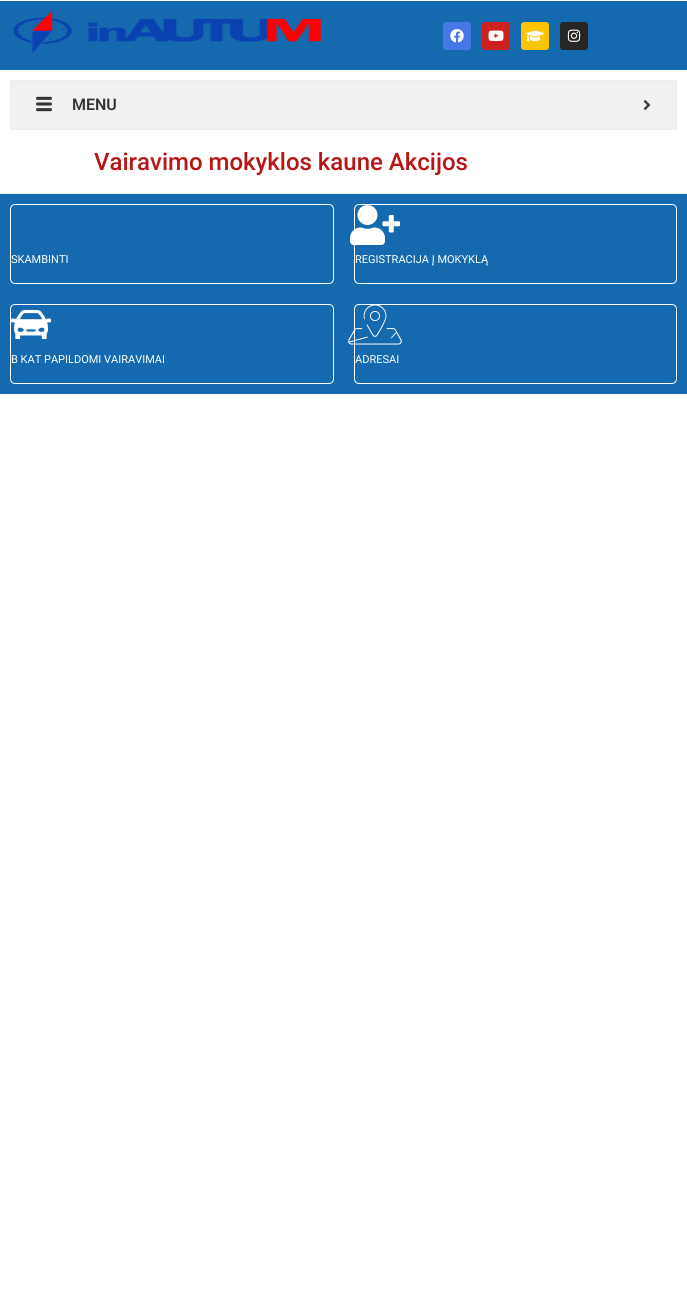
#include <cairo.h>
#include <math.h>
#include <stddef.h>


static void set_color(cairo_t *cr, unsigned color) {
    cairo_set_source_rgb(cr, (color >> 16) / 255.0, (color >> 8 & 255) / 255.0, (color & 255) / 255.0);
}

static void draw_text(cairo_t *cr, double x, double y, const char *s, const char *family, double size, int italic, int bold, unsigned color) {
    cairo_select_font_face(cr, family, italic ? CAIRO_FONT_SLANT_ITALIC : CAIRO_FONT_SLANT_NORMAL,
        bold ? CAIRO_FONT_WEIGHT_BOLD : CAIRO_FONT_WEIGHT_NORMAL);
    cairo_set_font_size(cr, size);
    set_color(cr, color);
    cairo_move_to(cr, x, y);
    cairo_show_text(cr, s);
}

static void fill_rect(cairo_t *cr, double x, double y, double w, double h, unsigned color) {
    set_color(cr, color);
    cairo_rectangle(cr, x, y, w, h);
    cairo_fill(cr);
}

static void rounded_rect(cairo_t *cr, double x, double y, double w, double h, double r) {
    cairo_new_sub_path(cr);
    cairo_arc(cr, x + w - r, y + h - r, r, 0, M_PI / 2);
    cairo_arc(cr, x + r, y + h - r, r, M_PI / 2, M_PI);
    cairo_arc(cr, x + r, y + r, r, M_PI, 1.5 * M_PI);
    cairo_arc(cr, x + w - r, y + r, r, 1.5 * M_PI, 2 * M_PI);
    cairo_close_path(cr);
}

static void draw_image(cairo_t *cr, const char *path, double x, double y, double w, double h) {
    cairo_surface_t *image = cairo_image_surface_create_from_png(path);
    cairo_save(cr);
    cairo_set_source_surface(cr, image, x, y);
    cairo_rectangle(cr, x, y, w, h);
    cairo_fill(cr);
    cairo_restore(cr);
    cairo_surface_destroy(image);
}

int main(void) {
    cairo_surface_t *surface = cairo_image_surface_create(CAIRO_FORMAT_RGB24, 687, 1310);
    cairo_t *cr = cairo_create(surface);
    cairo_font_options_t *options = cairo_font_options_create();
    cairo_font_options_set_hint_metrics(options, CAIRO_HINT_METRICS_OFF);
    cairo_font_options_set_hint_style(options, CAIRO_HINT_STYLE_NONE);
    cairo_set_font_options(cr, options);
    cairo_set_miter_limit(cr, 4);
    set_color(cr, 0xFFFFFF);
    cairo_paint(cr);
    fill_rect(cr, 0, 1, 687, 69, 0x1569AE);
    draw_image(cr, "assets/img1.png", 13, 11, 309, 42);
    set_color(cr, 0x4577E6);
    rounded_rect(cr, 443, 22, 28, 28, 3);
    cairo_fill(cr);
    draw_image(cr, "assets/img2.png", 450, 29, 14, 14);
    set_color(cr, 0xCD201F);
    rounded_rect(cr, 482, 22, 28, 28, 3);
    cairo_fill(cr);
    draw_image(cr, "assets/img3.png", 488, 30, 16, 11);
    set_color(cr, 0xFAC503);
    rounded_rect(cr, 521, 22, 28, 28, 3);
    cairo_fill(cr);
    draw_image(cr, "assets/img4.png", 526, 30, 18, 11);
    set_color(cr, 0x262626);
    rounded_rect(cr, 560, 22, 28, 28, 3);
    cairo_fill(cr);
    draw_image(cr, "assets/img5.png", 567, 29, 14, 13);
    set_color(cr, 0xF1F1F1);
    cairo_rectangle(cr, 10.5, 80.5, 666, 49);
    cairo_fill_preserve(cr);
    set_color(cr, 0xECECEC);
    cairo_set_line_width(cr, 1);
    cairo_stroke(cr);
    draw_image(cr, "assets/img6.png", 36, 96, 16, 16);
    draw_text(cr, 72, 110, "MENU", "Roboto SemiBold", 16, 0, 0, 0x333333);
    draw_image(cr, "assets/img7.png", 643, 100, 8, 10);
    draw_text(cr, 94, 170, "Vairavimo mokyklos kaune Akcijos", "Roboto Medium", 24, 0, 0, 0xB81616);
    fill_rect(cr, 0, 193, 687, 1, 0xF3F3F3);
    fill_rect(cr, 0, 194, 687, 200, 0x1569AE);
    rounded_rect(cr, 10.5, 204.5, 323, 79, 4.5);
    set_color(cr, 0xFFFFFF);
    cairo_stroke(cr);
    draw_text(cr, 11, 263, "SKAMBINTI", "Roboto", 11, 0, 0, 0xFFFFFF);
    rounded_rect(cr, 354.5, 204.5, 322, 79, 4.5);
    cairo_stroke(cr);
    draw_image(cr, "assets/img8.png", 350, 205, 50, 40);
    draw_text(cr, 355, 263, "REGISTRACIJA Į MOKYKLĄ", "Roboto", 11, 0, 0, 0xFFFFFF);
    rounded_rect(cr, 10.5, 304.5, 323, 79, 4.5);
    cairo_stroke(cr);
    draw_image(cr, "assets/img9.png", 11, 309, 40, 31);
    draw_text(cr, 11, 363, "B KAT PAPILDOMI VAIRAVIMAI", "Roboto", 11, 0, 0, 0xFFFFFF);
    rounded_rect(cr, 354.5, 304.5, 322, 79, 4.5);
    cairo_stroke(cr);
    draw_image(cr, "assets/img10.png", 348, 305, 54, 40);
    draw_text(cr, 355, 363, "ADRESAI", "Roboto", 11, 0, 0, 0xFFFFFF);
    cairo_surface_write_to_png(surface, "output.png");
    cairo_font_options_destroy(options);
    cairo_destroy(cr);
    cairo_surface_destroy(surface);
    return 0;
}
